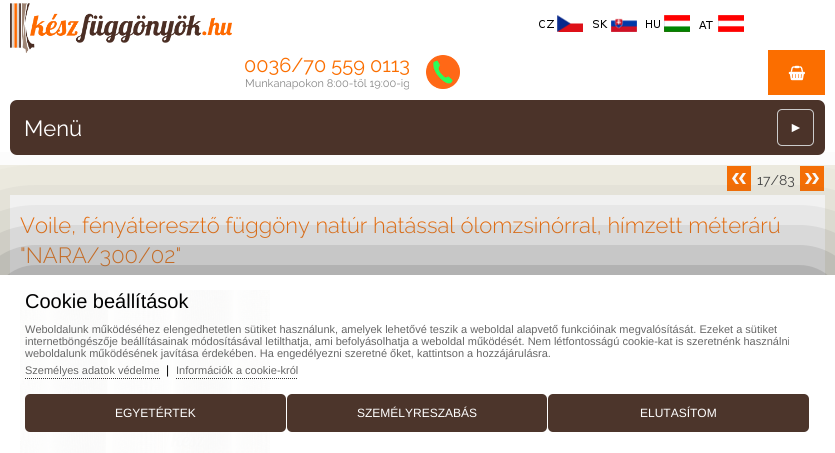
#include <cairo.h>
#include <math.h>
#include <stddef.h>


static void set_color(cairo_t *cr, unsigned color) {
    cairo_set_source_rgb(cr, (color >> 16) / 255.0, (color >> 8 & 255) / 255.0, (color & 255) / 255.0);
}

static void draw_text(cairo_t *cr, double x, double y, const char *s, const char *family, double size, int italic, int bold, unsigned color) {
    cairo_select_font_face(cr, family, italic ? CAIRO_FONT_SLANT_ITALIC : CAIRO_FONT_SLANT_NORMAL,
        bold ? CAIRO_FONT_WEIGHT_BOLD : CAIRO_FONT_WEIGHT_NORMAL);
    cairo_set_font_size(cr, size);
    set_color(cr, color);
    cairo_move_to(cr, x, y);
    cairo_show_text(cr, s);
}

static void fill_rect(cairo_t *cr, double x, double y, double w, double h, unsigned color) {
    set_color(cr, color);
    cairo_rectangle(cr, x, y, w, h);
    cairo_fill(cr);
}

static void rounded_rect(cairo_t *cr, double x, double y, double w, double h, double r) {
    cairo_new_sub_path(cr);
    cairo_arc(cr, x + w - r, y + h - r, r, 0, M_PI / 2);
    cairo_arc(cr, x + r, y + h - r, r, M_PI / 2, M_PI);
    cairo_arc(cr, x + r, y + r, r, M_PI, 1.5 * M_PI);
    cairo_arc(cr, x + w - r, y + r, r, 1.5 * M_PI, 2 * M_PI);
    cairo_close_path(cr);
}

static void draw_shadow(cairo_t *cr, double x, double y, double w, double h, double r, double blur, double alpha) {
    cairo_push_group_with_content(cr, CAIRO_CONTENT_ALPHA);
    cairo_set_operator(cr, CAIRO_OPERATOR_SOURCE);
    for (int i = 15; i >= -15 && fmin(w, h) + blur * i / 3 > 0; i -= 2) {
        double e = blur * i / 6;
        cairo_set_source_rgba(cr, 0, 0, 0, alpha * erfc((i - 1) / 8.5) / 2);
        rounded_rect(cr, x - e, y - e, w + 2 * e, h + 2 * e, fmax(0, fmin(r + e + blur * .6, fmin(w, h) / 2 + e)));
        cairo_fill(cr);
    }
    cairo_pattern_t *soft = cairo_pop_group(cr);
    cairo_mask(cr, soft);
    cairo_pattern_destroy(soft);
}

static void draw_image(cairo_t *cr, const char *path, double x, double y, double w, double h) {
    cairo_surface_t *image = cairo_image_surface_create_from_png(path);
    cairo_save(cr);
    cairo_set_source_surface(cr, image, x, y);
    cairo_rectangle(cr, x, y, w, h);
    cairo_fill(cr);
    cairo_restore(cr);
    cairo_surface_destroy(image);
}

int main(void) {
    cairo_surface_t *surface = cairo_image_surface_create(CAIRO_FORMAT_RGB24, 835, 453);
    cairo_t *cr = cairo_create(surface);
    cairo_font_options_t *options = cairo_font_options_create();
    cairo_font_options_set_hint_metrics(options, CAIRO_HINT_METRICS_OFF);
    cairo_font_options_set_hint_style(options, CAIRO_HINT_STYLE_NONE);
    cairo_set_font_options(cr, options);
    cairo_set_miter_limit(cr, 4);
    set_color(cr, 0xFFFFFF);
    cairo_paint(cr);
    draw_image(cr, "assets/img1.png", 10, 3, 222, 50);
    draw_image(cr, "assets/img2.png", 768, 50, 57, 45);
    draw_image(cr, "assets/img3.png", 539, 15, 44, 17);
    draw_image(cr, "assets/img4.png", 593, 18, 44, 14);
    draw_image(cr, "assets/img5.png", 646, 15, 44, 17);
    draw_image(cr, "assets/img6.png", 699, 15, 45, 17);
    draw_image(cr, "assets/img7.png", 426, 55, 34, 34);
    draw_text(cr, 244, 72, "0036/70 559 0113", "Raleway", 20, 0, 0, 0xFB6E00);
    draw_text(cr, 245, 87, "Munkanapokon 8:00-től 19:00-ig", "Raleway", 11, 0, 0, 0x888888);
    set_color(cr, 0x4B3329);
    rounded_rect(cr, 10, 100, 815, 55, 7);
    cairo_fill(cr);
    draw_text(cr, 24, 136, "Menü", "Raleway", 22, 0, 0, 0xFFFFFF);
    rounded_rect(cr, 777.5, 109.5, 36, 36, 4.5);
    set_color(cr, 0xCCCCCC);
    cairo_set_line_width(cr, 1);
    cairo_stroke(cr);
    draw_text(cr, 789, 132, "►", "Liberation Serif", 14, 0, 1, 0xFFFFFF);
    fill_rect(cr, 0, 165, 835, 110, 0xF1EFE4);
    draw_image(cr, "assets/img8.png", 727, 166, 24, 25);
    draw_text(cr, 757, 185, "17/83", "Raleway", 14, 0, 0, 0x444444);
    draw_image(cr, "assets/img9.png", 800, 166, 24, 25);
    fill_rect(cr, 10, 195, 815, 80, 0xFFFFFF);
    draw_text(cr, 20, 233, "Voile, fényáteresztő függöny natúr hatással ólomzsinórral, hímzett méterárú", "Raleway Light", 22, 0, 0, 0xFB6E00);
    draw_text(cr, 20, 263, "\"NARA/300/02\"", "Raleway Light", 22, 0, 0, 0xFB6E00);
    draw_image(cr, "assets/img10.png", 20, 290, 250, 163);
    cairo_save(cr);
    cairo_rectangle(cr, 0, 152, 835, 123);
    cairo_clip(cr);
    set_color(cr, 0x666666);
    draw_shadow(cr, 0, 275, 835, 178, 0, 60, 1);
    cairo_restore(cr);
    draw_text(cr, 25, 308, "Cookie beállítások", "Liberation Sans", 20, 0, 0, 0x000000);
    draw_text(cr, 25, 333, "Weboldalunk működéséhez elengedhetetlen sütiket használunk, amelyek lehetővé teszik a weboldal alapvető funkcióinak megvalósítását. Ezeket a sütiket", "Liberation Sans", 11, 0, 0, 0x676767);
    draw_text(cr, 25, 345, "internetböngészője beállításainak módosításával letilthatja, ami befolyásolhatja a weboldal működését. Nem létfontosságú cookie-kat is szeretnénk használni", "Liberation Sans", 11, 0, 0, 0x676767);
    draw_text(cr, 25, 357, "weboldalunk működésének javítása érdekében. Ha engedélyezni szeretné őket, kattintson a hozzájárulásra.", "Liberation Sans", 11, 0, 0, 0x676767);
    cairo_new_path(cr);
    cairo_move_to(cr, 25, 378.5);
    cairo_line_to(cr, 160, 378.5);
    set_color(cr, 0x333333);
    cairo_set_dash(cr, (double[]){1, 1}, 2, 0);
    cairo_stroke(cr);
    draw_text(cr, 25, 374, "Személyes adatok védelme", "Liberation Sans", 11, 0, 0, 0x676767);
    draw_text(cr, 166, 374, "|", "Liberation Sans", 12, 0, 0, 0x000000);
    cairo_new_path(cr);
    cairo_move_to(cr, 176, 378.5);
    cairo_line_to(cr, 298, 378.5);
    set_color(cr, 0x333333);
    cairo_stroke(cr);
    draw_text(cr, 176, 374, "Információk a cookie-król", "Liberation Sans", 11, 0, 0, 0x676767);
    set_color(cr, 0x4C352B);
    rounded_rect(cr, 25, 394, 261, 38, 5);
    cairo_fill(cr);
    draw_text(cr, 115, 417, "EGYETÉRTEK", "Liberation Sans", 12, 0, 0, 0xFFFFFF);
    set_color(cr, 0x4C352B);
    rounded_rect(cr, 287, 394, 260, 38, 5);
    cairo_fill(cr);
    draw_text(cr, 357, 417, "SZEMÉLYRESZABÁS", "Liberation Sans", 12, 0, 0, 0xFFFFFF);
    set_color(cr, 0x4C352B);
    rounded_rect(cr, 548, 394, 261, 38, 5);
    cairo_fill(cr);
    draw_text(cr, 640, 417, "ELUTASÍTOM", "Liberation Sans", 12, 0, 0, 0xFFFFFF);
    cairo_surface_write_to_png(surface, "output.png");
    cairo_font_options_destroy(options);
    cairo_destroy(cr);
    cairo_surface_destroy(surface);
    return 0;
}
